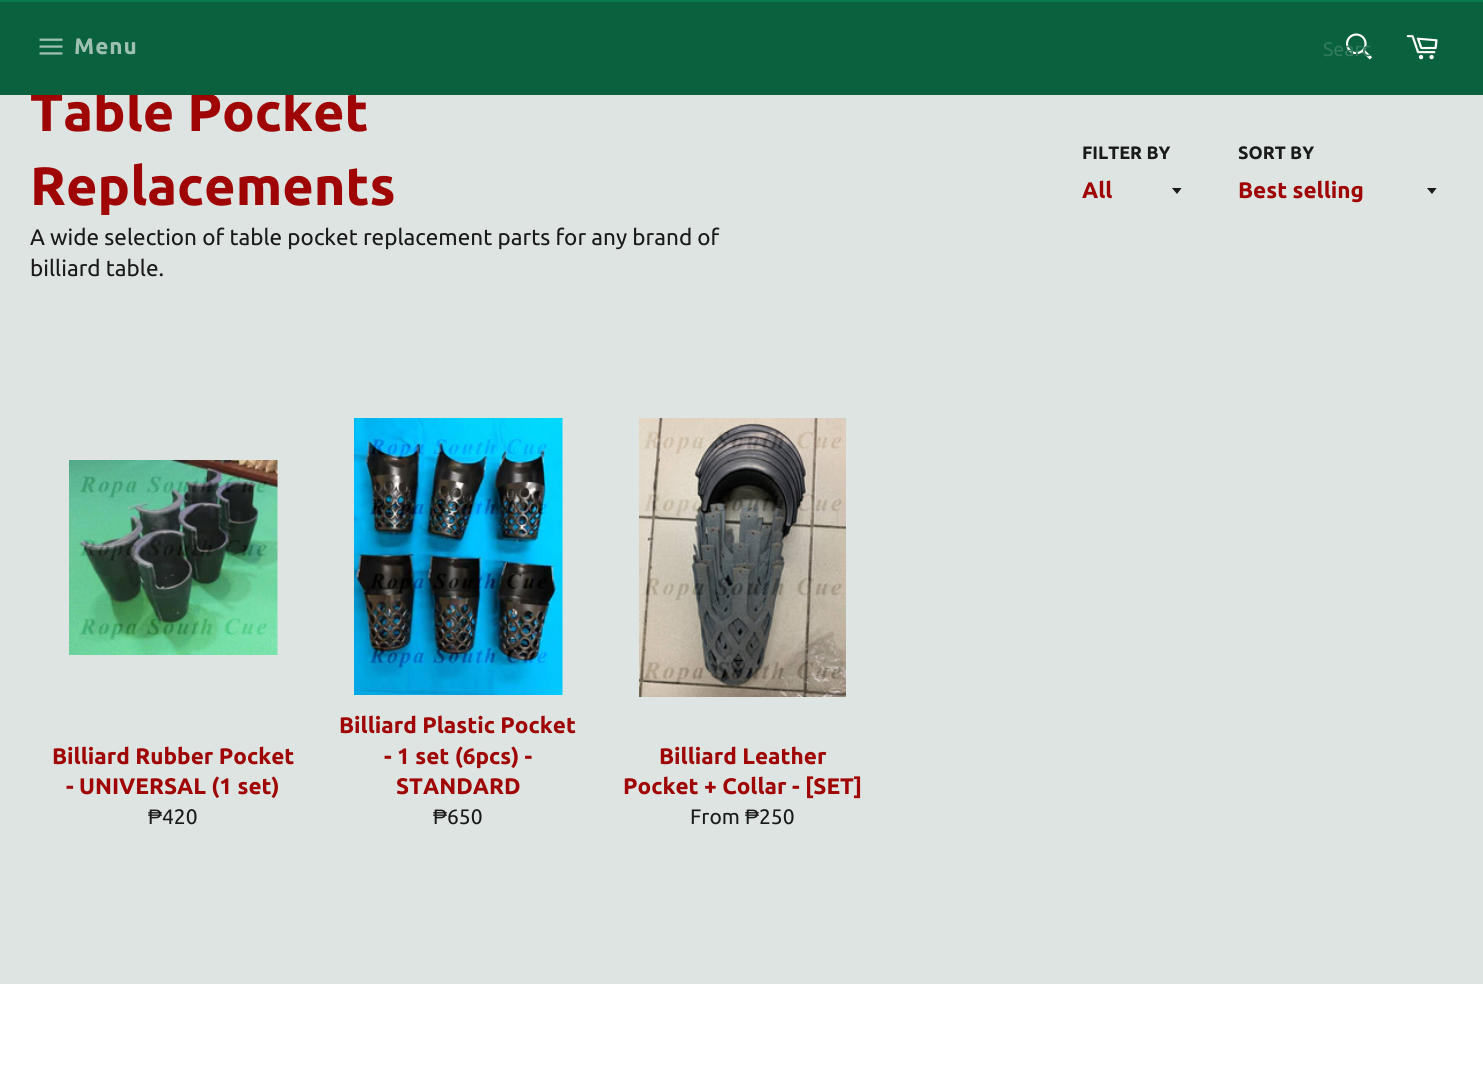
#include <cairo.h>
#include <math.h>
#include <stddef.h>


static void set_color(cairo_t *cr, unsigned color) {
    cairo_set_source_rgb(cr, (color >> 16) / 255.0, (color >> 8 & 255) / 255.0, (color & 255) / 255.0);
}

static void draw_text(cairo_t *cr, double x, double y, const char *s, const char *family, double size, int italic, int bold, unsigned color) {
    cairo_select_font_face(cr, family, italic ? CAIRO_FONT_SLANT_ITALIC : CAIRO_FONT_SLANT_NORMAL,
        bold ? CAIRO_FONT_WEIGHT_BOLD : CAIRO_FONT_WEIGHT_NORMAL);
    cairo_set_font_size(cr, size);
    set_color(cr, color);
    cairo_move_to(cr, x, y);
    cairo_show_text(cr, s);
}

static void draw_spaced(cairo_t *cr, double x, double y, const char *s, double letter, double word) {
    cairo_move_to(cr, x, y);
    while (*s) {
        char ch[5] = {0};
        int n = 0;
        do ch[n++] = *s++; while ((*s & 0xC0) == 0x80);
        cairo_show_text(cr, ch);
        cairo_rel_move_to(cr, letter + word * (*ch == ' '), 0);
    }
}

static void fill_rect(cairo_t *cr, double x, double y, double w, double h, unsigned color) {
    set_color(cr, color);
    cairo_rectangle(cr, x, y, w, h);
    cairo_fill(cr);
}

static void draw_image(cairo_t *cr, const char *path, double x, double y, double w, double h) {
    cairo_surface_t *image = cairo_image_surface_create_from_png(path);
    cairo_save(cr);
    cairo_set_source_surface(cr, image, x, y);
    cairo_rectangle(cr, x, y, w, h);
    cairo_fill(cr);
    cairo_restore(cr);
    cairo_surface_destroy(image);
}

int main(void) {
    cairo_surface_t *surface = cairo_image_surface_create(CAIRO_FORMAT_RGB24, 1483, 1072);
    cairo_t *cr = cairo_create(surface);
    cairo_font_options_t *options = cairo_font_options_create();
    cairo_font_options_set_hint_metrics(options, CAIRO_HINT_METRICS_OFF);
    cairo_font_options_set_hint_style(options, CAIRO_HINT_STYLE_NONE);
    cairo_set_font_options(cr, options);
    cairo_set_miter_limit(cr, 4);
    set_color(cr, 0xDEE4E2);
    cairo_paint(cr);
    draw_text(cr, 30, 131, "Table Pocket", "Ubuntu", 54, 0, 1, 0x9E0504);
    fill_rect(cr, 0, 2, 1483, 93, 0x09613D);
    fill_rect(cr, 0, 0, 1483, 2, 0x0B784C);
    draw_image(cr, "assets/img1.png", 39, 38, 24, 17);
    cairo_set_font_size(cr, 22.5);
    set_color(cr, 0x9DC0B1);
    draw_spaced(cr, 74, 54, "Menu", 1, 0);
    draw_image(cr, "assets/img2.png", 1345, 33, 27, 27);
    draw_text(cr, 1323, 56, "Searc", "Ubuntu", 19.5, 0, 0, 0x327B5D);
    draw_image(cr, "assets/img3.png", 1406, 35, 32, 25);
    draw_text(cr, 30, 205, "Replacements", "Ubuntu", 54, 0, 1, 0x9E0504);
    draw_text(cr, 30, 245, "A wide selection of table pocket replacement parts for any brand of", "Ubuntu", 22.5, 0, 0, 0x1A1A1A);
    draw_text(cr, 30, 276, "billiard table.", "Ubuntu", 22.5, 0, 0, 0x1A1A1A);
    draw_text(cr, 1082, 159, "FILTER BY", "Ubuntu", 18, 0, 1, 0x1A1A1A);
    cairo_save(cr);
    cairo_rectangle(cr, 1172, 188, 12, 7);
    cairo_clip(cr);
    cairo_new_path(cr);
    cairo_move_to(cr, 1171.5, 187.5);
    cairo_line_to(cr, 1177, 194);
    cairo_line_to(cr, 1182, 187.5);
    cairo_close_path(cr);
    cairo_fill(cr);
    cairo_restore(cr);
    draw_text(cr, 1082, 198, "All", "Ubuntu", 22.5, 0, 1, 0x9E0504);
    draw_text(cr, 1238, 159, "SORT BY", "Ubuntu", 18, 0, 1, 0x1A1A1A);
    cairo_save(cr);
    cairo_rectangle(cr, 1427, 188, 12, 7);
    cairo_clip(cr);
    cairo_new_path(cr);
    cairo_move_to(cr, 1426.5, 187.5);
    cairo_line_to(cr, 1432, 194);
    cairo_line_to(cr, 1437, 187.5);
    cairo_close_path(cr);
    cairo_fill(cr);
    cairo_restore(cr);
    draw_text(cr, 1238, 198, "Best selling", "Ubuntu", 22.5, 0, 1, 0x9E0504);
    draw_image(cr, "assets/img4.png", 69, 460, 209, 195);
    draw_text(cr, 52, 764, "Billiard Rubber Pocket", "Ubuntu", 22.5, 0, 1, 0x9E0504);
    draw_text(cr, 66, 794, "- UNIVERSAL (1 set)", "Ubuntu", 22.5, 0, 1, 0x9E0504);
    draw_text(cr, 148, 824, "₱", "Liberation Sans", 21, 0, 0, 0x1A1A1A);
    draw_text(cr, 162, 824, "420", "Ubuntu", 21, 0, 0, 0x1A1A1A);
    draw_image(cr, "assets/img5.png", 354, 418, 209, 277);
    draw_text(cr, 339, 733, "Billiard Plastic Pocket", "Ubuntu", 22.5, 0, 1, 0x9E0504);
    draw_text(cr, 384, 764, "- 1 set (6pcs) -", "Ubuntu", 22.5, 0, 1, 0x9E0504);
    draw_text(cr, 396, 794, "STANDARD", "Ubuntu", 22.5, 0, 1, 0x9E0504);
    draw_text(cr, 433, 824, "₱", "Liberation Sans", 21, 0, 0, 0x1A1A1A);
    draw_text(cr, 447, 824, "650", "Ubuntu", 21, 0, 0, 0x1A1A1A);
    draw_image(cr, "assets/img6.png", 639, 418, 207, 279);
    draw_text(cr, 659, 764, "Billiard Leather", "Ubuntu", 22.5, 0, 1, 0x9E0504);
    draw_text(cr, 623, 794, "Pocket + Collar - [SET]", "Ubuntu", 22.5, 0, 1, 0x9E0504);
    draw_text(cr, 690, 824, "From", "Ubuntu", 21, 0, 0, 0x1A1A1A);
    draw_text(cr, 745, 824, "₱", "Liberation Sans", 21, 0, 0, 0x1A1A1A);
    draw_text(cr, 759, 824, "250", "Ubuntu", 21, 0, 0, 0x1A1A1A);
    fill_rect(cr, 0, 984, 1483, 88, 0xFFFFFF);
    cairo_surface_write_to_png(surface, "output.png");
    cairo_font_options_destroy(options);
    cairo_destroy(cr);
    cairo_surface_destroy(surface);
    return 0;
}
